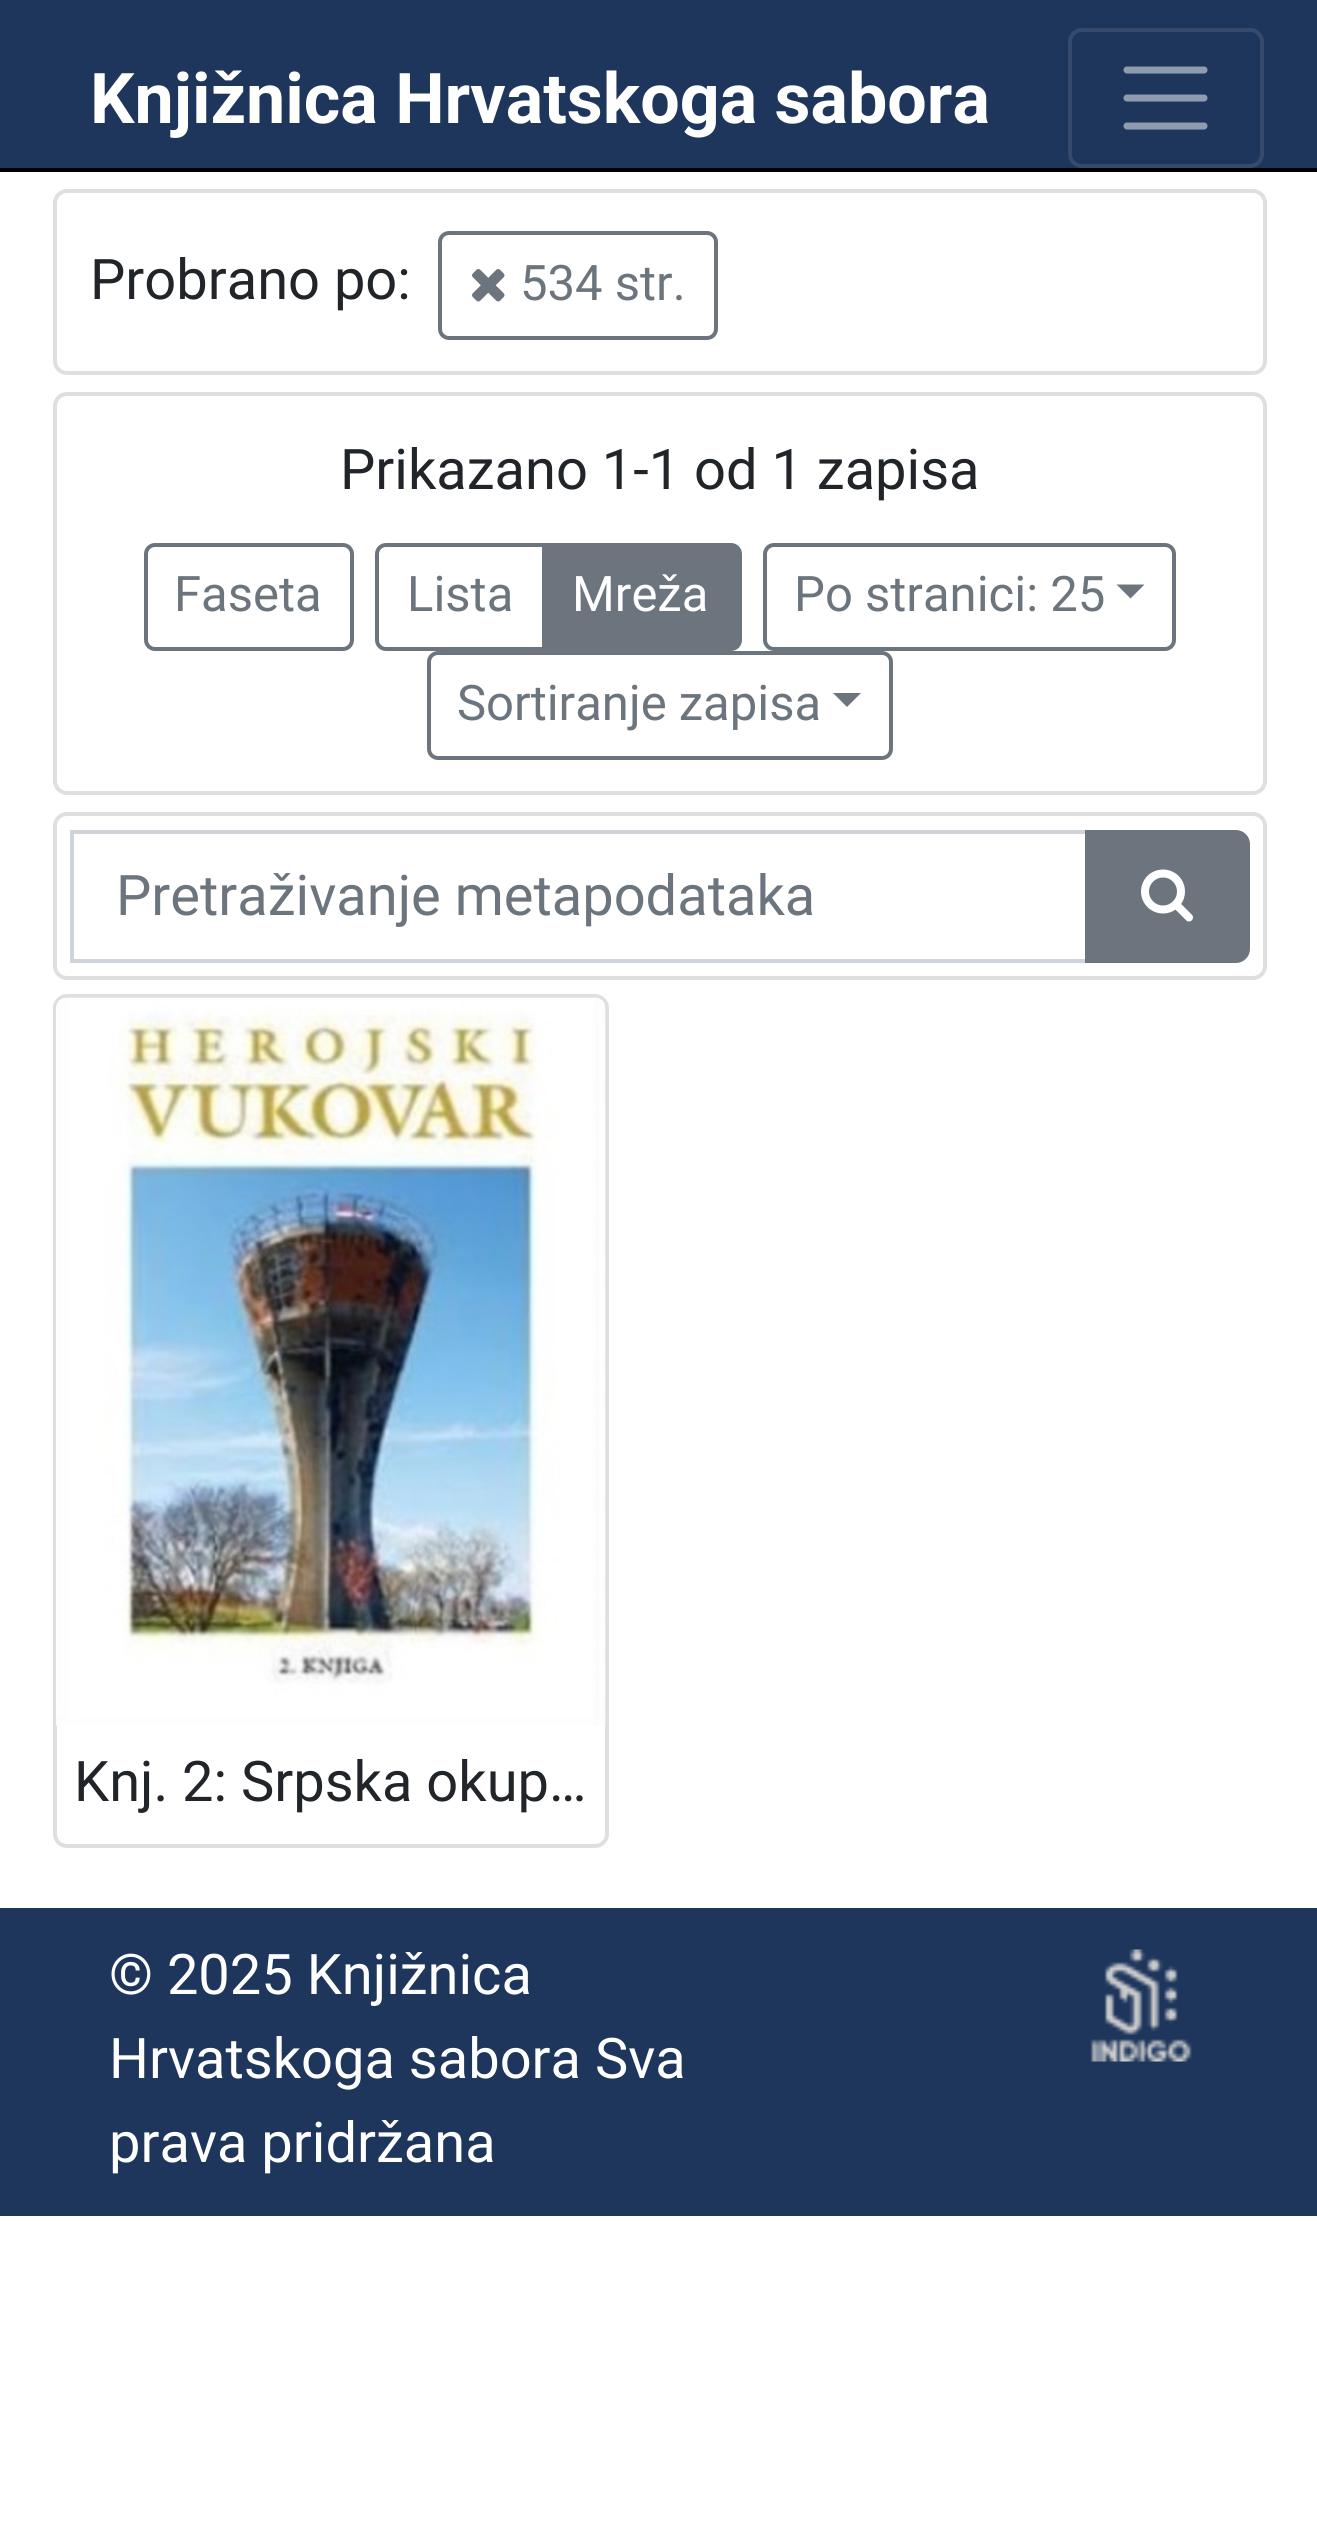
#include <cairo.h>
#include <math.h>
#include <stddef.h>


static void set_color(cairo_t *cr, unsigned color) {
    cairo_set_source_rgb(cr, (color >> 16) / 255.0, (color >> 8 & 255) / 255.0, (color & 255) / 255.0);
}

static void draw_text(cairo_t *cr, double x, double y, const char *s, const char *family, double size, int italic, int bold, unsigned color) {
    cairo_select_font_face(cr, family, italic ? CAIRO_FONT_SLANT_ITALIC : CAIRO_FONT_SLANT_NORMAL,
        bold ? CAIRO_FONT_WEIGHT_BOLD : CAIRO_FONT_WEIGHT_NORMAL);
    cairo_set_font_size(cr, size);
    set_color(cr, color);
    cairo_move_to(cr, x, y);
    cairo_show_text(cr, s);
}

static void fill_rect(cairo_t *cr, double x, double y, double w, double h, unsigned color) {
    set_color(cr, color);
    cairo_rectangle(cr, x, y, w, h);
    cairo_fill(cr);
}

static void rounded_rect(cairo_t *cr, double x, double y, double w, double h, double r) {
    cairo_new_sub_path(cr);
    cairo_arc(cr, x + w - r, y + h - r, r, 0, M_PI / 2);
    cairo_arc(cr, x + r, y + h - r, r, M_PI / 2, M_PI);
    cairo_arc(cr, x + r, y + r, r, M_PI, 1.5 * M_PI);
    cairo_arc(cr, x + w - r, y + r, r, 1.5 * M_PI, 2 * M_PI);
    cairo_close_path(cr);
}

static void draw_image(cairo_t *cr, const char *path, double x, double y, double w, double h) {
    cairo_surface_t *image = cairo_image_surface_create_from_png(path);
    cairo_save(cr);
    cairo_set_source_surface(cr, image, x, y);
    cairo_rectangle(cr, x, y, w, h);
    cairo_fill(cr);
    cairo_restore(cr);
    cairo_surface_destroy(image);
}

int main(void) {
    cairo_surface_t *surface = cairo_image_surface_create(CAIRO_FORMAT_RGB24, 1317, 2533);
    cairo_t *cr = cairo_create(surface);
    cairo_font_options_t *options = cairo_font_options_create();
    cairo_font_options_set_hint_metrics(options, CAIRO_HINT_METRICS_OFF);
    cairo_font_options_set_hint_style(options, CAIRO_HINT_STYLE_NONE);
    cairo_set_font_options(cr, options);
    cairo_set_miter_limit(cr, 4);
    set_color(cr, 0xFFFFFF);
    cairo_paint(cr);
    fill_rect(cr, 0, 0, 1317, 168, 0x1F365C);
    fill_rect(cr, 0, 168, 1317, 4, 0x000000);
    draw_text(cr, 90, 123, "Knjižnica Hrvatskoga sabora", "Roboto", 70, 0, 1, 0xFFFFFF);
    rounded_rect(cr, 1070, 30, 192, 136, 12);
    set_color(cr, 0x354A6C);
    cairo_set_line_width(cr, 4);
    cairo_stroke(cr);
    cairo_new_path(cr);
    cairo_move_to(cr, 1127, 70);
    cairo_line_to(cr, 1204, 70);
    cairo_move_to(cr, 1127, 98);
    cairo_line_to(cr, 1204, 98);
    cairo_move_to(cr, 1127, 126);
    cairo_line_to(cr, 1204, 126);
    set_color(cr, 0x8F9BAE);
    cairo_set_line_width(cr, 7);
    cairo_set_line_cap(cr, CAIRO_LINE_CAP_ROUND);
    cairo_stroke(cr);
    rounded_rect(cr, 55, 191, 1210, 182, 12);
    set_color(cr, 0xDFDFDF);
    cairo_set_line_width(cr, 4);
    cairo_set_line_cap(cr, CAIRO_LINE_CAP_BUTT);
    cairo_stroke(cr);
    draw_text(cr, 90, 299, "Probrano po:", "Roboto", 56, 0, 0, 0x212529);
    rounded_rect(cr, 440, 233, 276, 105, 9);
    set_color(cr, 0x6C757D);
    cairo_stroke(cr);
    draw_image(cr, "assets/img1.png", 472, 269, 33, 33);
    draw_text(cr, 520, 300, "534 str.", "Roboto", 49, 0, 0, 0x6C757D);
    rounded_rect(cr, 55, 394, 1210, 399, 12);
    set_color(cr, 0xDFDFDF);
    cairo_stroke(cr);
    draw_text(cr, 340, 489, "Prikazano 1-1 od 1 zapisa", "Roboto", 56, 0, 0, 0x212529);
    rounded_rect(cr, 146, 545, 206, 104, 9);
    set_color(cr, 0x6C757D);
    cairo_stroke(cr);
    draw_text(cr, 174, 611, "Faseta", "Roboto", 49, 0, 0, 0x6C757D);
    cairo_new_path(cr);
    cairo_move_to(cr, 386, 545);
    cairo_line_to(cr, 544, 545);
    cairo_line_to(cr, 544, 649);
    cairo_line_to(cr, 386, 649);
    cairo_curve_to(cr, 381, 649, 377, 645, 377, 640);
    cairo_line_to(cr, 377, 554);
    cairo_curve_to(cr, 377, 549, 381, 545, 386, 545);
    cairo_close_path(cr);
    cairo_stroke(cr);
    draw_text(cr, 407, 611, "Lista", "Roboto", 49, 0, 0, 0x6C757D);
    cairo_new_path(cr);
    cairo_move_to(cr, 545, 545);
    cairo_line_to(cr, 731, 545);
    cairo_curve_to(cr, 736, 545, 740, 549, 740, 554);
    cairo_line_to(cr, 740, 640);
    cairo_curve_to(cr, 740, 645, 736, 649, 731, 649);
    cairo_line_to(cr, 545, 649);
    cairo_close_path(cr);
    cairo_fill_preserve(cr);
    cairo_stroke(cr);
    draw_text(cr, 572, 611, "Mreža", "Roboto", 49, 0, 0, 0xFFFFFF);
    rounded_rect(cr, 765, 545, 409, 104, 9);
    set_color(cr, 0x6C757D);
    cairo_stroke(cr);
    draw_text(cr, 794, 611, "Po stranici: 25", "Roboto", 49, 0, 0, 0x6C757D);
    cairo_new_path(cr);
    cairo_move_to(cr, 1116.5, 584.5);
    cairo_line_to(cr, 1144.5, 584.5);
    cairo_line_to(cr, 1130.5, 598.5);
    cairo_close_path(cr);
    cairo_fill(cr);
    rounded_rect(cr, 429, 653, 462, 105, 9);
    cairo_stroke(cr);
    draw_text(cr, 457, 720, "Sortiranje zapisa", "Roboto", 49, 0, 0, 0x6C757D);
    cairo_new_path(cr);
    cairo_move_to(cr, 833, 693);
    cairo_line_to(cr, 861, 693);
    cairo_line_to(cr, 847, 707);
    cairo_close_path(cr);
    cairo_fill(cr);
    rounded_rect(cr, 55, 814, 1210, 164, 12);
    set_color(cr, 0xDFDFDF);
    cairo_stroke(cr);
    cairo_rectangle(cr, 72, 832, 1015, 129);
    set_color(cr, 0xCED4DA);
    cairo_stroke(cr);
    draw_text(cr, 116, 915, "Pretraživanje metapodataka", "Roboto", 56, 0, 0, 0x6C757D);
    cairo_new_path(cr);
    cairo_move_to(cr, 1087, 832);
    cairo_line_to(cr, 1236, 832);
    cairo_curve_to(cr, 1242.5, 832, 1248, 837.5, 1248, 844);
    cairo_line_to(cr, 1248, 949);
    cairo_curve_to(cr, 1248, 955.5, 1242.5, 961, 1236, 961);
    cairo_line_to(cr, 1087, 961);
    cairo_close_path(cr);
    cairo_fill_preserve(cr);
    cairo_stroke(cr);
    draw_image(cr, "assets/img2.png", 1141, 869, 52, 53);
    rounded_rect(cr, 55, 996, 552, 850, 12);
    set_color(cr, 0xDFDFDF);
    cairo_stroke(cr);
    draw_image(cr, "assets/img3.png", 56, 997, 550, 729);
    draw_text(cr, 74, 1801, "Knj. 2: Srpska okup…", "Roboto", 56, 0, 0, 0x212529);
    fill_rect(cr, 0, 1908, 1317, 308, 0x1F365C);
    draw_text(cr, 109, 1994, "© 2025 Knjižnica", "Roboto", 56, 0, 0, 0xFFFFFF);
    draw_text(cr, 109, 2078, "Hrvatskoga sabora Sva", "Roboto", 56, 0, 0, 0xFFFFFF);
    draw_text(cr, 109, 2162, "prava pridržana", "Roboto", 56, 0, 0, 0xFFFFFF);
    draw_image(cr, "assets/img4.png", 1090, 1949, 102, 113);
    cairo_surface_write_to_png(surface, "output.png");
    cairo_font_options_destroy(options);
    cairo_destroy(cr);
    cairo_surface_destroy(surface);
    return 0;
}
